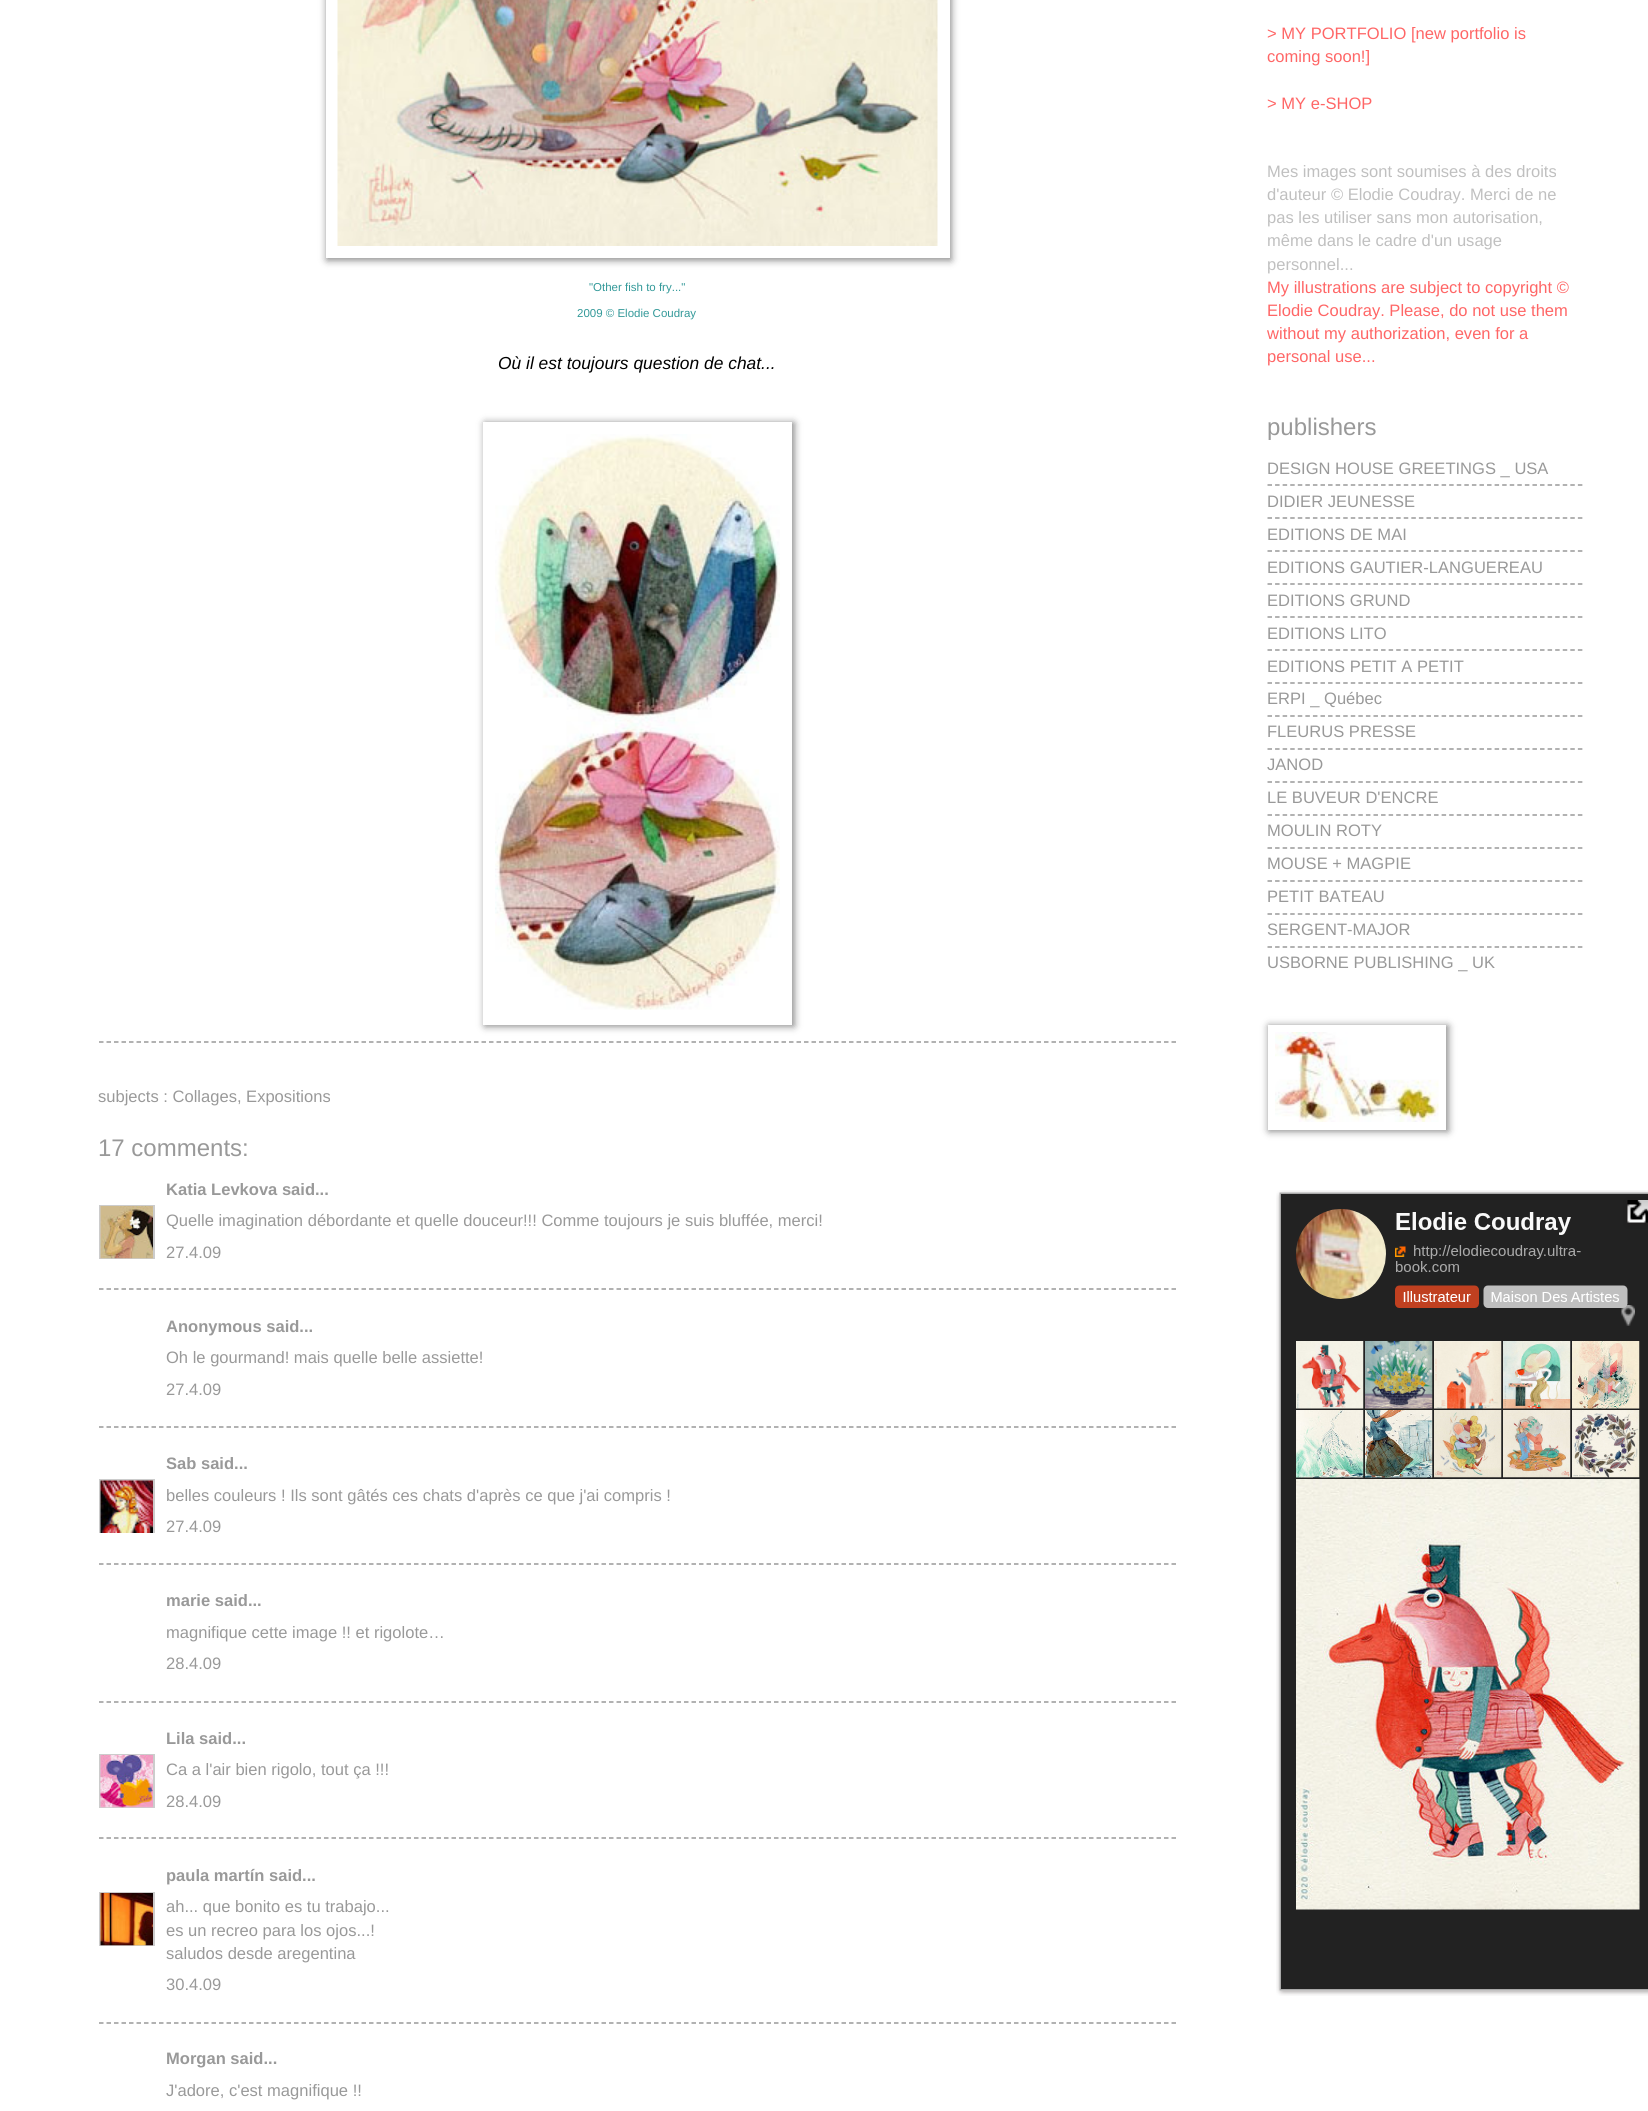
#include <cairo.h>
#include <math.h>
#include <stddef.h>


static void set_color(cairo_t *cr, unsigned color) {
    cairo_set_source_rgb(cr, (color >> 16) / 255.0, (color >> 8 & 255) / 255.0, (color & 255) / 255.0);
}

static void draw_text(cairo_t *cr, double x, double y, const char *s, const char *family, double size, int italic, int bold, unsigned color) {
    cairo_select_font_face(cr, family, italic ? CAIRO_FONT_SLANT_ITALIC : CAIRO_FONT_SLANT_NORMAL,
        bold ? CAIRO_FONT_WEIGHT_BOLD : CAIRO_FONT_WEIGHT_NORMAL);
    cairo_set_font_size(cr, size);
    set_color(cr, color);
    cairo_move_to(cr, x, y);
    cairo_show_text(cr, s);
}

static void fill_rect(cairo_t *cr, double x, double y, double w, double h, unsigned color) {
    set_color(cr, color);
    cairo_rectangle(cr, x, y, w, h);
    cairo_fill(cr);
}

static void rounded_rect(cairo_t *cr, double x, double y, double w, double h, double r) {
    cairo_new_sub_path(cr);
    cairo_arc(cr, x + w - r, y + h - r, r, 0, M_PI / 2);
    cairo_arc(cr, x + r, y + h - r, r, M_PI / 2, M_PI);
    cairo_arc(cr, x + r, y + r, r, M_PI, 1.5 * M_PI);
    cairo_arc(cr, x + w - r, y + r, r, 1.5 * M_PI, 2 * M_PI);
    cairo_close_path(cr);
}

static void draw_shadow(cairo_t *cr, double x, double y, double w, double h, double r, double blur, double alpha) {
    cairo_push_group_with_content(cr, CAIRO_CONTENT_ALPHA);
    cairo_set_operator(cr, CAIRO_OPERATOR_SOURCE);
    for (int i = 15; i >= -15 && fmin(w, h) + blur * i / 3 > 0; i -= 2) {
        double e = blur * i / 6;
        cairo_set_source_rgba(cr, 0, 0, 0, alpha * erfc((i - 1) / 8.5) / 2);
        rounded_rect(cr, x - e, y - e, w + 2 * e, h + 2 * e, fmax(0, fmin(r + e + blur * .6, fmin(w, h) / 2 + e)));
        cairo_fill(cr);
    }
    cairo_pattern_t *soft = cairo_pop_group(cr);
    cairo_mask(cr, soft);
    cairo_pattern_destroy(soft);
}

static void draw_image(cairo_t *cr, const char *path, double x, double y, double w, double h) {
    cairo_surface_t *image = cairo_image_surface_create_from_png(path);
    cairo_save(cr);
    cairo_set_source_surface(cr, image, x, y);
    cairo_rectangle(cr, x, y, w, h);
    cairo_fill(cr);
    cairo_restore(cr);
    cairo_surface_destroy(image);
}

int main(void) {
    cairo_surface_t *surface = cairo_image_surface_create(CAIRO_FORMAT_RGB24, 1648, 2111);
    cairo_t *cr = cairo_create(surface);
    cairo_font_options_t *options = cairo_font_options_create();
    cairo_font_options_set_hint_metrics(options, CAIRO_HINT_METRICS_OFF);
    cairo_font_options_set_hint_style(options, CAIRO_HINT_STYLE_NONE);
    cairo_set_font_options(cr, options);
    cairo_set_miter_limit(cr, 4);
    set_color(cr, 0xFFFFFF);
    cairo_paint(cr);
    set_color(cr, 0x000000);
    draw_shadow(cr, 327, -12, 624, 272, 0, 4, 0.5);
    fill_rect(cr, 326, 0, 624, 258, 0xFFFFFF);
    draw_image(cr, "assets/img1.png", 337, 0, 601, 246);
    draw_text(cr, 589, 291, "\"Other fish to fry...\"", "Liberation Sans", 11.5, 0, 0, 0x339999);
    draw_text(cr, 577, 317, "2009 © Elodie Coudray", "Liberation Sans", 11.5, 0, 0, 0x339999);
    draw_text(cr, 498, 369, "Où il est toujours question de chat...", "Liberation Sans", 17.4, 1, 0, 0x000000);
    set_color(cr, 0x000000);
    draw_shadow(cr, 485, 423, 309, 603, 0, 4, 0.5);
    fill_rect(cr, 483, 422, 309, 603, 0xFFFFFF);
    draw_image(cr, "assets/img2.png", 495, 434, 285, 576);
    cairo_new_path(cr);
    cairo_move_to(cr, 99, 1042);
    cairo_line_to(cr, 1176, 1042);
    set_color(cr, 0x999999);
    cairo_set_line_width(cr, 1.5);
    cairo_set_dash(cr, (double[]){4.5, 3}, 2, 0);
    cairo_stroke(cr);
    draw_text(cr, 98, 1102, "subjects : Collages, Expositions", "Liberation Sans", 16.55, 0, 0, 0x999999);
    draw_text(cr, 98, 1156, "17 comments:", "Liberation Sans", 24, 0, 0, 0x999999);
    draw_text(cr, 166, 1195, "Katia Levkova said...", "Liberation Sans", 16.55, 0, 1, 0x999999);
    cairo_save(cr);
    cairo_rectangle(cr, 99, 1205, 56, 54);
    cairo_clip(cr);
    cairo_rectangle(cr, 100, 1206, 54, 53);
    set_color(cr, 0xCCCCCC);
    cairo_set_line_width(cr, 2);
    cairo_set_dash(cr, NULL, 0, 0);
    cairo_stroke(cr);
    cairo_restore(cr);
    draw_image(cr, "assets/img3.png", 100, 1206, 53, 53);
    draw_text(cr, 166, 1226, "Quelle imagination débordante et quelle douceur!!! Comme toujours je suis bluffée, merci!", "Liberation Sans", 16.55, 0, 0, 0x999999);
    draw_text(cr, 166, 1258, "27.4.09", "Liberation Sans", 16.55, 0, 0, 0x999999);
    cairo_new_path(cr);
    cairo_move_to(cr, 99, 1289);
    cairo_line_to(cr, 1176, 1289);
    cairo_stroke(cr);
    draw_text(cr, 166, 1332, "Anonymous said...", "Liberation Sans", 16.55, 0, 1, 0x999999);
    draw_text(cr, 166, 1363, "Oh le gourmand! mais quelle belle assiette!", "Liberation Sans", 16.55, 0, 0, 0x999999);
    draw_text(cr, 166, 1395, "27.4.09", "Liberation Sans", 16.55, 0, 0, 0x999999);
    cairo_new_path(cr);
    cairo_move_to(cr, 99, 1427);
    cairo_line_to(cr, 1176, 1427);
    cairo_stroke(cr);
    draw_text(cr, 166, 1469, "Sab said...", "Liberation Sans", 16.55, 0, 1, 0x999999);
    cairo_save(cr);
    cairo_rectangle(cr, 99, 1479, 56, 54);
    cairo_clip(cr);
    cairo_rectangle(cr, 100, 1480, 54, 54);
    set_color(cr, 0xCCCCCC);
    cairo_set_line_width(cr, 2);
    cairo_set_dash(cr, NULL, 0, 0);
    cairo_stroke(cr);
    cairo_restore(cr);
    draw_image(cr, "assets/img4.png", 100, 1480, 53, 53);
    draw_text(cr, 166, 1501, "belles couleurs ! Ils sont gâtés ces chats d'après ce que j'ai compris !", "Liberation Sans", 16.55, 0, 0, 0x999999);
    draw_text(cr, 166, 1532, "27.4.09", "Liberation Sans", 16.55, 0, 0, 0x999999);
    cairo_new_path(cr);
    cairo_move_to(cr, 99, 1564);
    cairo_line_to(cr, 1176, 1564);
    cairo_stroke(cr);
    draw_text(cr, 166, 1606, "marie said...", "Liberation Sans", 16.55, 0, 1, 0x999999);
    draw_text(cr, 166, 1638, "magnifique cette image !! et rigolote…", "Liberation Sans", 16.55, 0, 0, 0x999999);
    draw_text(cr, 166, 1669, "28.4.09", "Liberation Sans", 16.55, 0, 0, 0x999999);
    cairo_new_path(cr);
    cairo_move_to(cr, 99, 1702);
    cairo_line_to(cr, 1176, 1702);
    cairo_stroke(cr);
    draw_text(cr, 166, 1744, "Lila said...", "Liberation Sans", 16.55, 0, 1, 0x999999);
    cairo_save(cr);
    cairo_rectangle(cr, 99, 1754, 56, 54);
    cairo_clip(cr);
    cairo_rectangle(cr, 100, 1755, 54, 53);
    set_color(cr, 0xCCCCCC);
    cairo_set_line_width(cr, 2);
    cairo_set_dash(cr, NULL, 0, 0);
    cairo_stroke(cr);
    cairo_restore(cr);
    draw_image(cr, "assets/img5.png", 100, 1755, 53, 53);
    draw_text(cr, 166, 1775, "Ca a l'air bien rigolo, tout ça !!!", "Liberation Sans", 16.55, 0, 0, 0x999999);
    draw_text(cr, 166, 1807, "28.4.09", "Liberation Sans", 16.55, 0, 0, 0x999999);
    cairo_new_path(cr);
    cairo_move_to(cr, 99, 1838);
    cairo_line_to(cr, 1176, 1838);
    cairo_stroke(cr);
    draw_text(cr, 166, 1881, "paula martín said...", "Liberation Sans", 16.55, 0, 1, 0x999999);
    cairo_save(cr);
    cairo_rectangle(cr, 99, 1892, 56, 54);
    cairo_clip(cr);
    cairo_rectangle(cr, 100, 1893, 54, 53);
    set_color(cr, 0xCCCCCC);
    cairo_set_line_width(cr, 2);
    cairo_set_dash(cr, NULL, 0, 0);
    cairo_stroke(cr);
    cairo_restore(cr);
    draw_image(cr, "assets/img6.png", 100, 1893, 53, 53);
    draw_text(cr, 166, 1912, "ah... que bonito es tu trabajo...", "Liberation Sans", 16.55, 0, 0, 0x999999);
    draw_text(cr, 166, 1936, "es un recreo para los ojos...!", "Liberation Sans", 16.55, 0, 0, 0x999999);
    draw_text(cr, 166, 1959, "saludos desde aregentina", "Liberation Sans", 16.55, 0, 0, 0x999999);
    draw_text(cr, 166, 1990, "30.4.09", "Liberation Sans", 16.55, 0, 0, 0x999999);
    cairo_new_path(cr);
    cairo_move_to(cr, 99, 2023);
    cairo_line_to(cr, 1176, 2023);
    cairo_stroke(cr);
    draw_text(cr, 166, 2064, "Morgan said...", "Liberation Sans", 16.55, 0, 1, 0x999999);
    draw_text(cr, 166, 2096, "J'adore, c'est magnifique !!", "Liberation Sans", 16.55, 0, 0, 0x999999);
    draw_text(cr, 1267, 39, "> MY PORTFOLIO [new portfolio is", "Liberation Sans", 16.55, 0, 0, 0xFF6666);
    draw_text(cr, 1267, 62, "coming soon!]", "Liberation Sans", 16.55, 0, 0, 0xFF6666);
    draw_text(cr, 1267, 109, "> MY e-SHOP", "Liberation Sans", 16.55, 0, 0, 0xFF6666);
    draw_text(cr, 1267, 177, "Mes images sont soumises à des droits", "Liberation Sans", 16.55, 0, 0, 0xC0C0C0);
    draw_text(cr, 1267, 200, "d'auteur © Elodie Coudray. Merci de ne", "Liberation Sans", 16.55, 0, 0, 0xC0C0C0);
    draw_text(cr, 1267, 223, "pas les utiliser sans mon autorisation,", "Liberation Sans", 16.55, 0, 0, 0xC0C0C0);
    draw_text(cr, 1267, 246, "même dans le cadre d'un usage", "Liberation Sans", 16.55, 0, 0, 0xC0C0C0);
    draw_text(cr, 1267, 270, "personnel...", "Liberation Sans", 16.55, 0, 0, 0xC0C0C0);
    draw_text(cr, 1267, 293, "My illustrations are subject to copyright ©", "Liberation Sans", 16.55, 0, 0, 0xFF6666);
    draw_text(cr, 1267, 316, "Elodie Coudray. Please, do not use them", "Liberation Sans", 16.55, 0, 0, 0xFF6666);
    draw_text(cr, 1267, 339, "without my authorization, even for a", "Liberation Sans", 16.55, 0, 0, 0xFF6666);
    draw_text(cr, 1267, 362, "personal use...", "Liberation Sans", 16.55, 0, 0, 0xFF6666);
    draw_text(cr, 1267, 435, "publishers", "Liberation Sans", 24, 0, 0, 0x999999);
    draw_text(cr, 1267, 474, "DESIGN HOUSE GREETINGS _ USA", "Liberation Sans", 16.55, 0, 0, 0x999999);
    cairo_new_path(cr);
    cairo_move_to(cr, 1267.5, 485);
    cairo_line_to(cr, 1582.5, 485);
    cairo_set_dash(cr, (double[]){4.5, 3.07}, 2, 0);
    cairo_stroke(cr);
    draw_text(cr, 1267, 507, "DIDIER JEUNESSE", "Liberation Sans", 16.55, 0, 0, 0x999999);
    cairo_new_path(cr);
    cairo_move_to(cr, 1267.5, 518);
    cairo_line_to(cr, 1582.5, 518);
    cairo_stroke(cr);
    draw_text(cr, 1267, 540, "EDITIONS DE MAI", "Liberation Sans", 16.55, 0, 0, 0x999999);
    cairo_new_path(cr);
    cairo_move_to(cr, 1267.5, 551);
    cairo_line_to(cr, 1582.5, 551);
    cairo_stroke(cr);
    draw_text(cr, 1267, 573, "EDITIONS GAUTIER-LANGUEREAU", "Liberation Sans", 16.55, 0, 0, 0x999999);
    cairo_new_path(cr);
    cairo_move_to(cr, 1267.5, 584);
    cairo_line_to(cr, 1582.5, 584);
    cairo_stroke(cr);
    draw_text(cr, 1267, 606, "EDITIONS GRUND", "Liberation Sans", 16.55, 0, 0, 0x999999);
    cairo_new_path(cr);
    cairo_move_to(cr, 1267.5, 617);
    cairo_line_to(cr, 1582.5, 617);
    cairo_stroke(cr);
    draw_text(cr, 1267, 639, "EDITIONS LITO", "Liberation Sans", 16.55, 0, 0, 0x999999);
    cairo_new_path(cr);
    cairo_move_to(cr, 1267.5, 650);
    cairo_line_to(cr, 1582.5, 650);
    cairo_stroke(cr);
    draw_text(cr, 1267, 672, "EDITIONS PETIT A PETIT", "Liberation Sans", 16.55, 0, 0, 0x999999);
    cairo_new_path(cr);
    cairo_move_to(cr, 1267.5, 683);
    cairo_line_to(cr, 1582.5, 683);
    cairo_stroke(cr);
    draw_text(cr, 1267, 704, "ERPI _ Québec", "Liberation Sans", 16.55, 0, 0, 0x999999);
    cairo_new_path(cr);
    cairo_move_to(cr, 1267.5, 716);
    cairo_line_to(cr, 1582.5, 716);
    cairo_stroke(cr);
    draw_text(cr, 1267, 737, "FLEURUS PRESSE", "Liberation Sans", 16.55, 0, 0, 0x999999);
    cairo_new_path(cr);
    cairo_move_to(cr, 1267.5, 749);
    cairo_line_to(cr, 1582.5, 749);
    cairo_stroke(cr);
    draw_text(cr, 1267, 770, "JANOD", "Liberation Sans", 16.55, 0, 0, 0x999999);
    cairo_new_path(cr);
    cairo_move_to(cr, 1267.5, 782);
    cairo_line_to(cr, 1582.5, 782);
    cairo_stroke(cr);
    draw_text(cr, 1267, 803, "LE BUVEUR D'ENCRE", "Liberation Sans", 16.55, 0, 0, 0x999999);
    cairo_new_path(cr);
    cairo_move_to(cr, 1267.5, 815);
    cairo_line_to(cr, 1582.5, 815);
    cairo_stroke(cr);
    draw_text(cr, 1267, 836, "MOULIN ROTY", "Liberation Sans", 16.55, 0, 0, 0x999999);
    cairo_new_path(cr);
    cairo_move_to(cr, 1267.5, 848);
    cairo_line_to(cr, 1582.5, 848);
    cairo_stroke(cr);
    draw_text(cr, 1267, 869, "MOUSE + MAGPIE", "Liberation Sans", 16.55, 0, 0, 0x999999);
    cairo_new_path(cr);
    cairo_move_to(cr, 1267.5, 881);
    cairo_line_to(cr, 1582.5, 881);
    cairo_stroke(cr);
    draw_text(cr, 1267, 902, "PETIT BATEAU", "Liberation Sans", 16.55, 0, 0, 0x999999);
    cairo_new_path(cr);
    cairo_move_to(cr, 1267.5, 914);
    cairo_line_to(cr, 1582.5, 914);
    cairo_stroke(cr);
    draw_text(cr, 1267, 935, "SERGENT-MAJOR", "Liberation Sans", 16.55, 0, 0, 0x999999);
    cairo_new_path(cr);
    cairo_move_to(cr, 1267.5, 947);
    cairo_line_to(cr, 1582.5, 947);
    cairo_stroke(cr);
    draw_text(cr, 1267, 968, "USBORNE PUBLISHING _ UK", "Liberation Sans", 16.55, 0, 0, 0x999999);
    set_color(cr, 0x000000);
    draw_shadow(cr, 1269, 1026, 179, 105, 0, 4, 0.5);
    fill_rect(cr, 1268, 1025, 178, 105, 0xFFFFFF);
    draw_image(cr, "assets/img7.png", 1275, 1032, 164, 90);
    draw_image(cr, "assets/img8.png", 1276, 1190, 372, 806);
    cairo_surface_write_to_png(surface, "output.png");
    cairo_font_options_destroy(options);
    cairo_destroy(cr);
    cairo_surface_destroy(surface);
    return 0;
}
